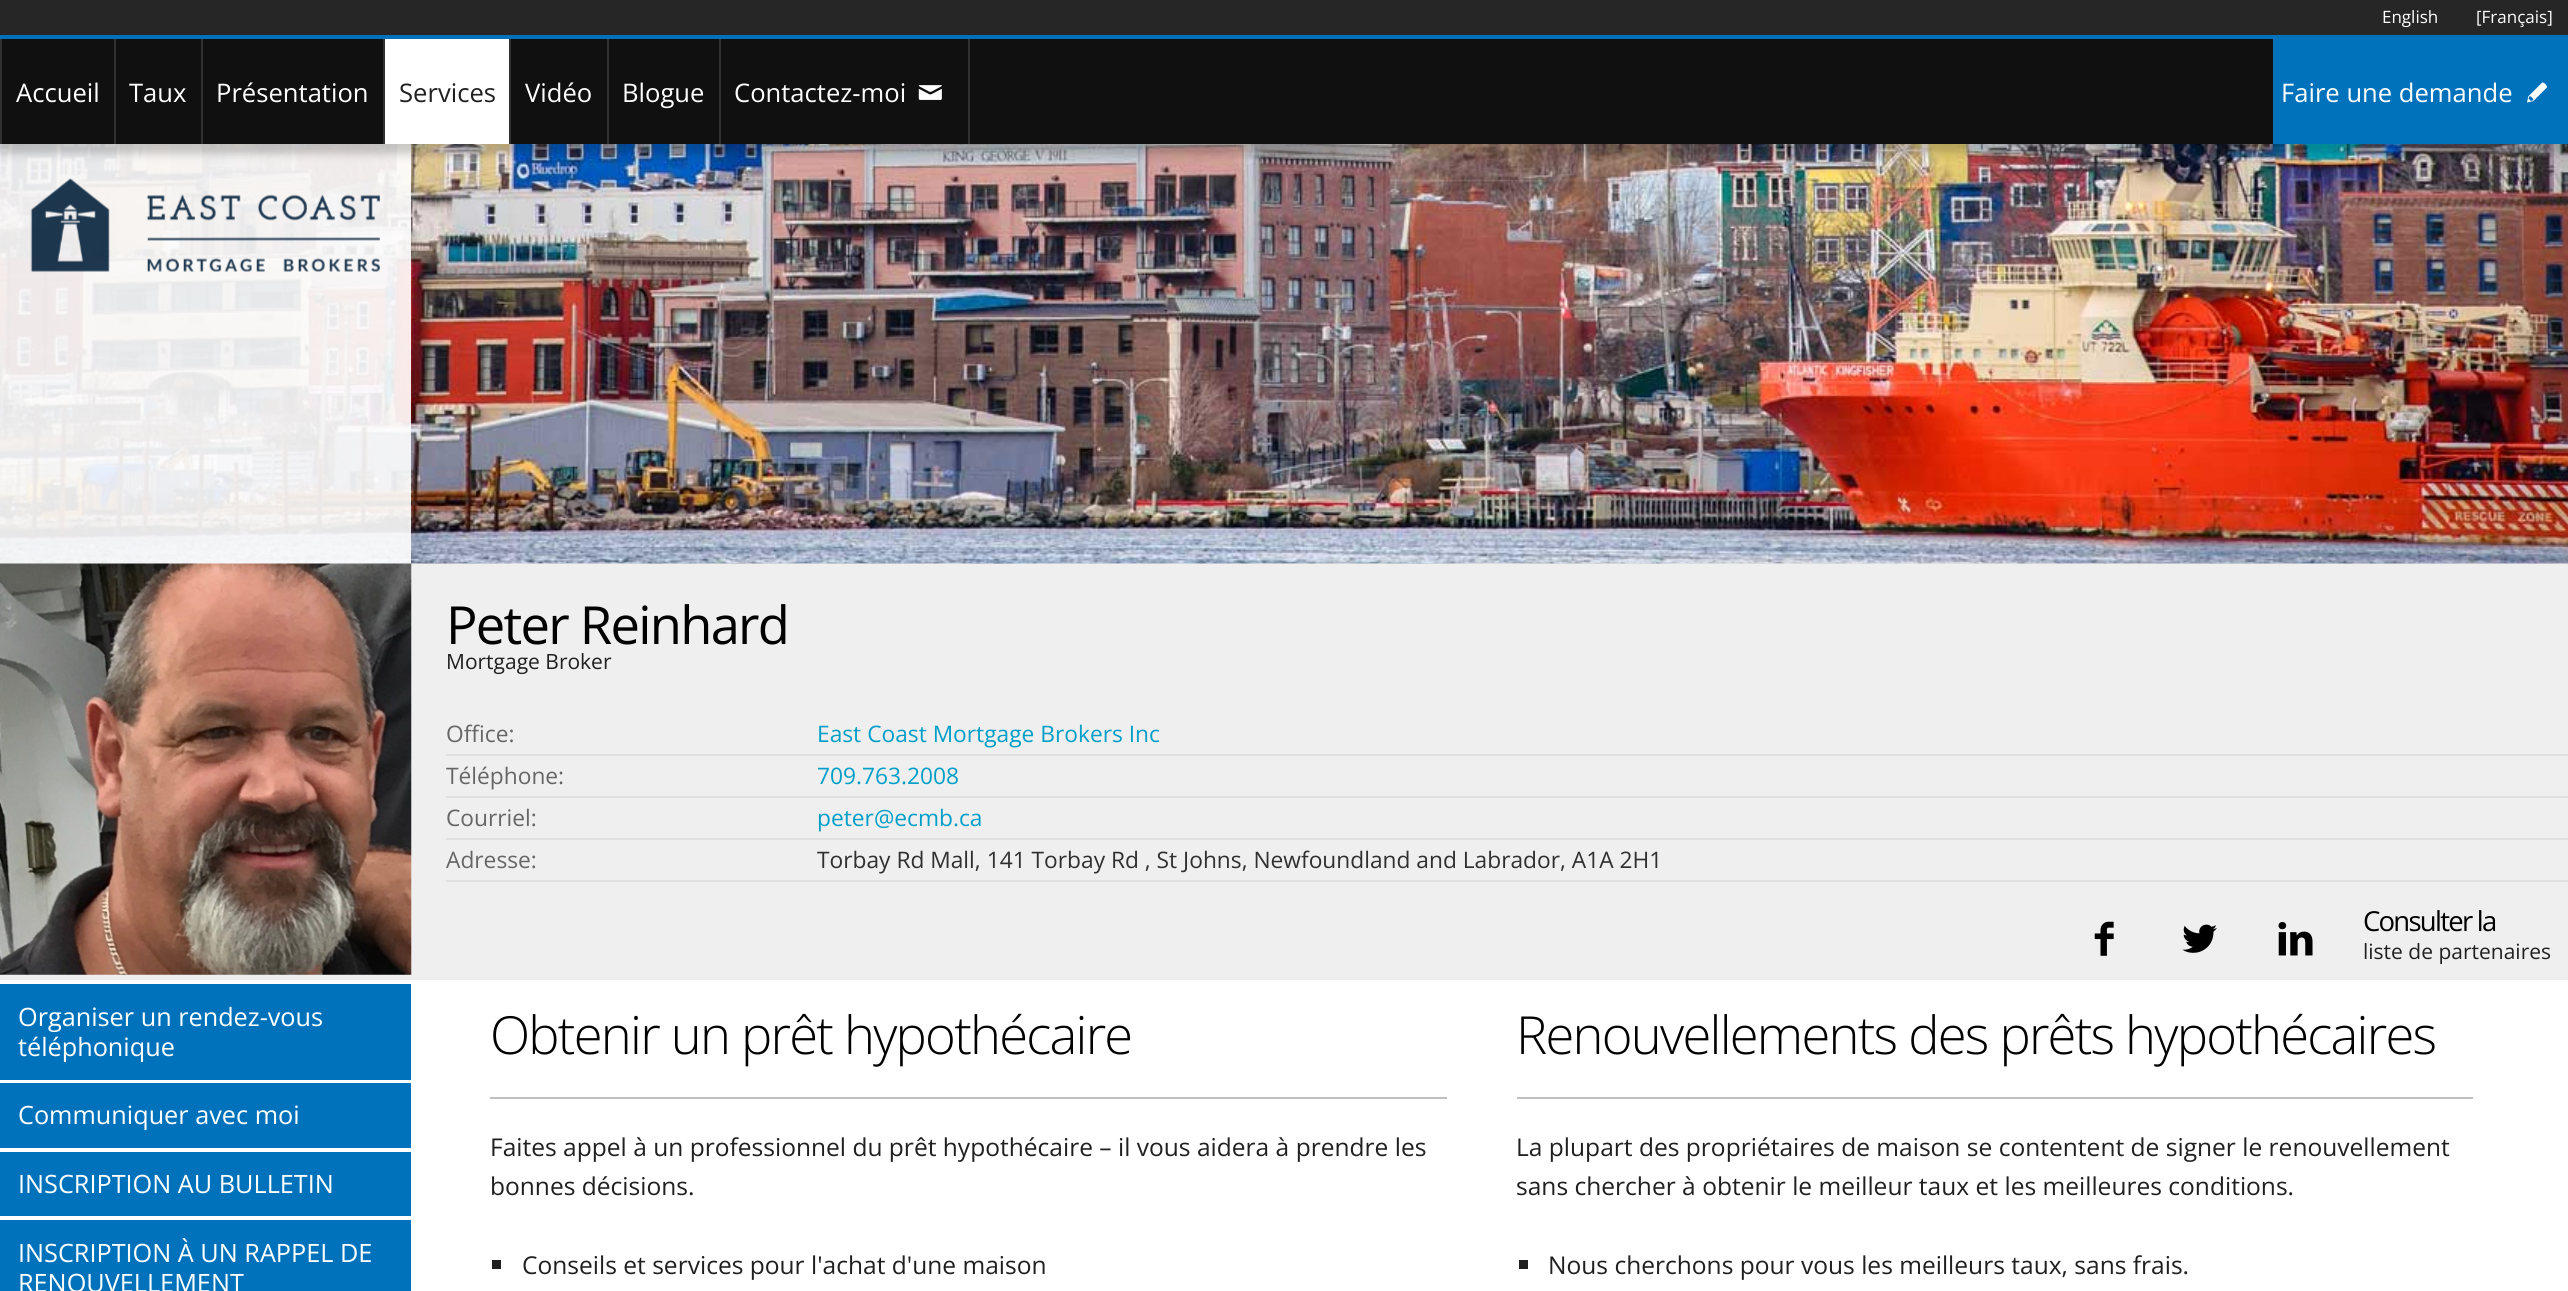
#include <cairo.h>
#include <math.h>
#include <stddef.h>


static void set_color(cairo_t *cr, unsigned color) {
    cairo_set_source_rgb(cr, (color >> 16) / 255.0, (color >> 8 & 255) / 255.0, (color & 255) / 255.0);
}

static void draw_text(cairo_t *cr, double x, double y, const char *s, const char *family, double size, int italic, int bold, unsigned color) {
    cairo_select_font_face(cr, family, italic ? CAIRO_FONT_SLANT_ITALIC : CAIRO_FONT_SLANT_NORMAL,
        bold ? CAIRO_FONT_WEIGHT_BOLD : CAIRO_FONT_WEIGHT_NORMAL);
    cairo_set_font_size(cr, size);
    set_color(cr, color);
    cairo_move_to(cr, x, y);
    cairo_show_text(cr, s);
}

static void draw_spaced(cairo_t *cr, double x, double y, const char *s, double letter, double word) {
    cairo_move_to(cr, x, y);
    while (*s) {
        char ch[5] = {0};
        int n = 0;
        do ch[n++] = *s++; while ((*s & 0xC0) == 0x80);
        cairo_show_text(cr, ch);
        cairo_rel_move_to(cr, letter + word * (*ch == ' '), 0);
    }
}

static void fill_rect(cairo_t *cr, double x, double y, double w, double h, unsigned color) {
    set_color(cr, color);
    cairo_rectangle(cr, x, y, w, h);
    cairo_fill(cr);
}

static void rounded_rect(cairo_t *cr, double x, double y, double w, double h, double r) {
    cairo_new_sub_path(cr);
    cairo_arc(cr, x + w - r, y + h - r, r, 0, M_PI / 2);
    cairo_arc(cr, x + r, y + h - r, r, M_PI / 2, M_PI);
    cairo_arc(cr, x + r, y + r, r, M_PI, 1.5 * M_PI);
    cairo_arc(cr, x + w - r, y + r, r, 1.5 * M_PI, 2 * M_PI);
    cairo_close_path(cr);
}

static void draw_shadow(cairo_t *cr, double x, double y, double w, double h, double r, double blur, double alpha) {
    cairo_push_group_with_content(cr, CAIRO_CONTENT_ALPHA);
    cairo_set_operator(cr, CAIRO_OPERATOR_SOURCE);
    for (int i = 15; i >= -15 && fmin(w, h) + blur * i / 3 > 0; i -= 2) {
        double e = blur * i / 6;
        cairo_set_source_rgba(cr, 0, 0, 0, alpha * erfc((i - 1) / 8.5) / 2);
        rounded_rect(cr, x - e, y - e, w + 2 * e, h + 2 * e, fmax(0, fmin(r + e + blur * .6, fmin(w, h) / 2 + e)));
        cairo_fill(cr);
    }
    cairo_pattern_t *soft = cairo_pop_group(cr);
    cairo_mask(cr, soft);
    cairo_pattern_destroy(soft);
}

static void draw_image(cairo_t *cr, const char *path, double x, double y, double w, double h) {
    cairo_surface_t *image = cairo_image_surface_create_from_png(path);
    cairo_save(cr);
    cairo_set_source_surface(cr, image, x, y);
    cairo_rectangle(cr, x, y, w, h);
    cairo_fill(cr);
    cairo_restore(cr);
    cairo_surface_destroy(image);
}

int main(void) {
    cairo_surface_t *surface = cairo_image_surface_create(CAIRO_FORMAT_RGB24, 2568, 1291);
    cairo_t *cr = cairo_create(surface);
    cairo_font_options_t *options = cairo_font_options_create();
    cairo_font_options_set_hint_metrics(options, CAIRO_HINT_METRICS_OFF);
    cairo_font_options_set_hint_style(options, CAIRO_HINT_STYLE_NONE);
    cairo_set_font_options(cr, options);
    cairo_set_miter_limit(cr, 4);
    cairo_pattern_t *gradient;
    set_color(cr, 0xFFFFFF);
    cairo_paint(cr);
    draw_image(cr, "assets/img1.png", 0, 563, 2568, 1);
    draw_image(cr, "assets/img4.png", 0, 563, 2568, 1);
    draw_image(cr, "assets/img5.png", 0, 144, 2568, 420);
    gradient = cairo_pattern_create_linear(206, 143, 206, 844);
    cairo_pattern_add_color_stop_rgba(gradient, 0.2, 1, 1, 1, 0.9);
    cairo_pattern_add_color_stop_rgba(gradient, 0.7, 1, 1, 1, 0.9);
    cairo_pattern_add_color_stop_rgba(gradient, 1, 1, 1, 1, 0);
    cairo_set_source(cr, gradient);
    cairo_pattern_destroy(gradient);
    cairo_rectangle(cr, 0, 144, 411, 420);
    cairo_fill(cr);
    set_color(cr, 0x000000);
    draw_shadow(cr, -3, 39, 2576, 115, 0, 4.5, 0.2);
    fill_rect(cr, 0, 0, 2568, 35, 0x262626);
    draw_text(cr, 2382, 23, "English", "Open Sans", 17, 0, 0, 0xFFFFFF);
    draw_text(cr, 2476, 23, "[Français]", "Open Sans", 17, 0, 0, 0xFFFFFF);
    fill_rect(cr, 2, 39, 2271, 105, 0x101010);
    fill_rect(cr, 0, 35, 2568, 4, 0x0072BB);
    fill_rect(cr, 0, 39, 2, 105, 0x303030);
    draw_text(cr, 16, 102, "Accueil", "Open Sans", 25.6, 0, 0, 0xFFFFFF);
    fill_rect(cr, 114, 39, 2, 105, 0x303030);
    draw_text(cr, 129, 102, "Taux", "Open Sans", 25.6, 0, 0, 0xFFFFFF);
    fill_rect(cr, 201, 39, 2, 105, 0x303030);
    draw_text(cr, 216, 102, "Présentation", "Open Sans", 25.6, 0, 0, 0xFFFFFF);
    fill_rect(cr, 385, 39, 124, 105, 0xFFFFFF);
    fill_rect(cr, 383, 39, 2, 105, 0x303030);
    draw_text(cr, 399, 102, "Services", "Open Sans", 25.6, 0, 0, 0x202020);
    fill_rect(cr, 509, 39, 2, 105, 0x303030);
    draw_text(cr, 525, 102, "Vidéo", "Open Sans", 25.6, 0, 0, 0xFFFFFF);
    fill_rect(cr, 607, 39, 2, 105, 0x303030);
    draw_text(cr, 622, 102, "Blogue", "Open Sans", 25.6, 0, 0, 0xFFFFFF);
    fill_rect(cr, 968, 39, 2, 105, 0x303030);
    fill_rect(cr, 719, 39, 2, 105, 0x303030);
    draw_text(cr, 734, 102, "Contactez-moi", "Open Sans", 25.6, 0, 0, 0xFFFFFF);
    draw_image(cr, "assets/img2.png", 918, 85, 24, 15);
    fill_rect(cr, 2273, 39, 295, 105, 0x0072BB);
    draw_text(cr, 2281, 102, "Faire une demande", "Open Sans", 25.6, 0, 0, 0xFFFFFF);
    draw_image(cr, "assets/img3.png", 2527, 82, 20, 21);
    cairo_set_source_rgba(cr, 1, 1, 1, 0.05);
    cairo_rectangle(cr, 1253, 322, 63, 63);
    cairo_fill(cr);
    draw_image(cr, "assets/img6.png", 1258, 327, 53, 53);
    cairo_rectangle(cr, 1254, 323, 61, 61);
    cairo_stroke(cr);
    draw_image(cr, "assets/img7.png", 30, 178, 350, 94);
    fill_rect(cr, 0, 564, 2568, 416, 0xEFEFEF);
    draw_image(cr, "assets/img8.png", 0, 563, 412, 412);
    cairo_set_font_size(cr, 52.5);
    set_color(cr, 0x000000);
    draw_spaced(cr, 446, 644, "Peter Reinhard", -1.75, 0);
    draw_text(cr, 446, 669, "Mortgage Broker", "Open Sans", 21, 0, 0, 0x202020);
    fill_rect(cr, 446, 754, 2122, 2, 0xDFDFDF);
    draw_text(cr, 446, 742, "Office:", "Open Sans", 22.75, 0, 0, 0x666666);
    draw_text(cr, 817, 742, "East Coast Mortgage Brokers Inc", "Open Sans", 22.75, 0, 0, 0x009FC8);
    fill_rect(cr, 446, 796, 2122, 2, 0xDFDFDF);
    draw_text(cr, 446, 784, "Téléphone:", "Open Sans", 22.75, 0, 0, 0x666666);
    draw_text(cr, 817, 784, "709.763.2008", "Open Sans", 22.75, 0, 0, 0x009FC8);
    fill_rect(cr, 446, 838, 2122, 2, 0xDFDFDF);
    draw_text(cr, 446, 826, "Courriel:", "Open Sans", 22.75, 0, 0, 0x666666);
    draw_text(cr, 817, 826, "peter@ecmb.ca", "Open Sans", 22.75, 0, 0, 0x009FC8);
    fill_rect(cr, 446, 880, 2122, 2, 0xDFDFDF);
    draw_text(cr, 446, 868, "Adresse:", "Open Sans", 22.75, 0, 0, 0x666666);
    draw_text(cr, 817, 868, "Torbay Rd Mall, 141 Torbay Rd , St Johns, Newfoundland and Labrador, A1A 2H1", "Open Sans", 22.75, 0, 0, 0x303030);
    draw_image(cr, "assets/img9.png", 2094, 921, 20, 35);
    draw_image(cr, "assets/img10.png", 2182, 924, 35, 29);
    draw_image(cr, "assets/img11.png", 2278, 922, 35, 34);
    cairo_set_font_size(cr, 27.5);
    set_color(cr, 0x000000);
    draw_spaced(cr, 2363, 931, "Consulter la", -1.75, 0);
    draw_text(cr, 2363, 959, "liste de partenaires", "Open Sans", 21, 0, 0, 0x202020);
    fill_rect(cr, 0, 984, 411, 96, 0x0072BB);
    draw_text(cr, 18, 1026, "Organiser un rendez-vous", "Open Sans", 25.25, 0, 0, 0xFFFFFF);
    draw_text(cr, 18, 1056, "téléphonique", "Open Sans", 25.25, 0, 0, 0xFFFFFF);
    fill_rect(cr, 0, 1083, 411, 65, 0x0072BB);
    draw_text(cr, 18, 1124, "Communiquer avec moi", "Open Sans", 25.25, 0, 0, 0xFFFFFF);
    fill_rect(cr, 0, 1152, 411, 64, 0x0072BB);
    draw_text(cr, 18, 1193, "INSCRIPTION AU BULLETIN", "Open Sans", 25.25, 0, 0, 0xFFFFFF);
    fill_rect(cr, 0, 1220, 411, 71, 0x0072BB);
    draw_text(cr, 18, 1262, "INSCRIPTION À UN RAPPEL DE", "Open Sans", 25.25, 0, 0, 0xFFFFFF);
    draw_text(cr, 18, 1292, "RENOUVELLEMENT", "Open Sans", 25.25, 0, 0, 0xFFFFFF);
    cairo_select_font_face(cr, "Open Sans Light", CAIRO_FONT_SLANT_NORMAL, CAIRO_FONT_WEIGHT_NORMAL);
    cairo_set_font_size(cr, 52.5);
    set_color(cr, 0x000000);
    draw_spaced(cr, 490, 1054, "Obtenir un prêt hypothécaire", -1.75, 0);
    fill_rect(cr, 490, 1097, 957, 2, 0xC0C0C0);
    draw_text(cr, 490, 1156, "Faites appel à un professionnel du prêt hypothécaire – il vous aidera à prendre les", "Open Sans", 24.55, 0, 0, 0x202020);
    draw_text(cr, 490, 1195, "bonnes décisions.", "Open Sans", 24.55, 0, 0, 0x202020);
    fill_rect(cr, 492, 1260, 9, 9, 0x202020);
    draw_text(cr, 522, 1274, "Conseils et services pour l'achat d'une maison", "Open Sans", 24.55, 0, 0, 0x202020);
    cairo_select_font_face(cr, "Open Sans Light", CAIRO_FONT_SLANT_NORMAL, CAIRO_FONT_WEIGHT_NORMAL);
    cairo_set_font_size(cr, 52.5);
    set_color(cr, 0x000000);
    draw_spaced(cr, 1516, 1054, "Renouvellements des prêts hypothécaires", -1.75, 0);
    fill_rect(cr, 1517, 1097, 956, 2, 0xC0C0C0);
    draw_text(cr, 1516, 1156, "La plupart des propriétaires de maison se contentent de signer le renouvellement", "Open Sans", 24.55, 0, 0, 0x202020);
    draw_text(cr, 1516, 1195, "sans chercher à obtenir le meilleur taux et les meilleures conditions.", "Open Sans", 24.55, 0, 0, 0x202020);
    fill_rect(cr, 1519, 1260, 9, 9, 0x202020);
    draw_text(cr, 1548, 1274, "Nous cherchons pour vous les meilleurs taux, sans frais.", "Open Sans", 24.55, 0, 0, 0x202020);
    cairo_surface_write_to_png(surface, "output.png");
    cairo_font_options_destroy(options);
    cairo_destroy(cr);
    cairo_surface_destroy(surface);
    return 0;
}
